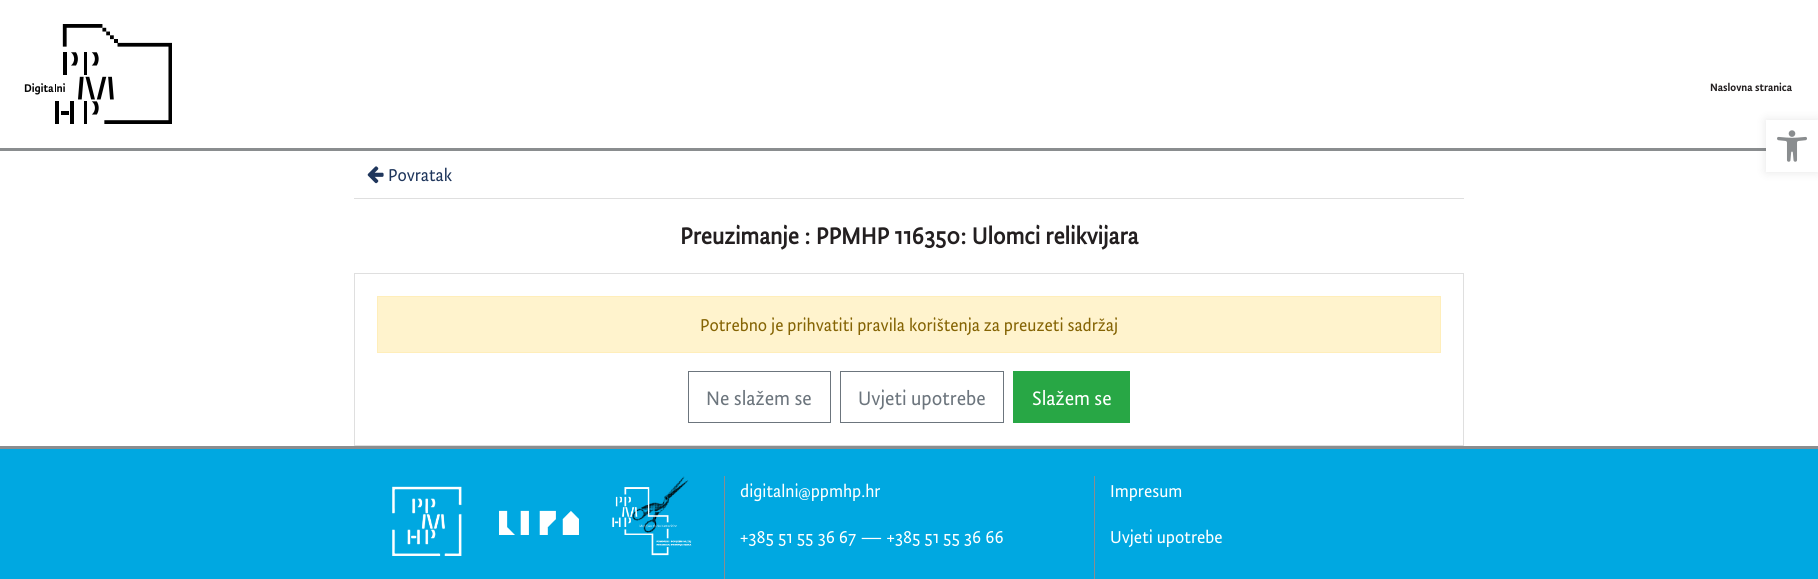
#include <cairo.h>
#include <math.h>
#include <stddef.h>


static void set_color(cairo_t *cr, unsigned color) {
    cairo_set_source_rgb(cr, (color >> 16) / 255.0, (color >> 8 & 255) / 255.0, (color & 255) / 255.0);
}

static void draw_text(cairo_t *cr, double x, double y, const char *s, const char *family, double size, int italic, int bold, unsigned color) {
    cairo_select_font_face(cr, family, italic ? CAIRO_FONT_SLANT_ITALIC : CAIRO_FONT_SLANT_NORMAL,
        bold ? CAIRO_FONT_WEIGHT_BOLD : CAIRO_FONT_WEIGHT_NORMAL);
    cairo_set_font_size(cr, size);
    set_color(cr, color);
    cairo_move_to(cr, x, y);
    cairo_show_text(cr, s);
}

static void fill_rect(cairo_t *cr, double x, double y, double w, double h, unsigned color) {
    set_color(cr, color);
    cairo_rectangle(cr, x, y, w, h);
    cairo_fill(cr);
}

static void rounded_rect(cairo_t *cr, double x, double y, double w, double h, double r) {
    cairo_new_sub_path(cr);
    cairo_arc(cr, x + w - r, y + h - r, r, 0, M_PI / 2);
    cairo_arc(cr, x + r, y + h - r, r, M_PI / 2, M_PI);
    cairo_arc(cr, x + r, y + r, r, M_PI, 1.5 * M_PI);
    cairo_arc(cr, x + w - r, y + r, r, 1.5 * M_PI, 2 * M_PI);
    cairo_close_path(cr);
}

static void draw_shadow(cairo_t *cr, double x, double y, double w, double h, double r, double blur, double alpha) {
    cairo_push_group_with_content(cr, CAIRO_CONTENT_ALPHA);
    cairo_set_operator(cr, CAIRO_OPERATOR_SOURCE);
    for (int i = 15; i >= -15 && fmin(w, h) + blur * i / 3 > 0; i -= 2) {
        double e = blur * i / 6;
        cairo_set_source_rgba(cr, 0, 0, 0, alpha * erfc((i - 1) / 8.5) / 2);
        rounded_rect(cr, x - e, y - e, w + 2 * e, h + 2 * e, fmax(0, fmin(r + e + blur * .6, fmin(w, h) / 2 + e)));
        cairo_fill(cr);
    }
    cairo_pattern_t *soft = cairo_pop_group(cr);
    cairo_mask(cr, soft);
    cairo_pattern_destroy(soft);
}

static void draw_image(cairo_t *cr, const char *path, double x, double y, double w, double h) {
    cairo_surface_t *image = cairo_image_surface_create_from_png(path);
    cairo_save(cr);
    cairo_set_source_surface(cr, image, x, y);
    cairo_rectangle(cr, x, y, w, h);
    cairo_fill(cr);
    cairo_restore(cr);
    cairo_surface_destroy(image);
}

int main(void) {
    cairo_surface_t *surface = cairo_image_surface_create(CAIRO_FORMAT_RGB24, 1818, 579);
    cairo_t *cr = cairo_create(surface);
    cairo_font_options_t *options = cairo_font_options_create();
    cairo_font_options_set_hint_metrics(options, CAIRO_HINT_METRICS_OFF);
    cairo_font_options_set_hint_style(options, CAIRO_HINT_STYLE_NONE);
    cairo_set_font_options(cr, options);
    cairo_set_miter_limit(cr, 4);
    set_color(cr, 0xFFFFFF);
    cairo_paint(cr);
    fill_rect(cr, 0, 148, 1766, 3, 0x8A8D8F);
    draw_image(cr, "assets/img1.png", 24, 24, 148, 100);
    draw_text(cr, 1710, 91, "Naslovna stranica", "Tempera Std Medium", 12, 0, 0, 0x231F20);
    set_color(cr, 0x000000);
    draw_shadow(cr, 1766, 120, 52, 52, 0, 5, 0.1);
    fill_rect(cr, 1766, 120, 52, 52, 0xFFFFFF);
    draw_image(cr, "assets/img2.png", 1777, 130, 30, 32);
    fill_rect(cr, 354, 198, 1110, 1, 0xDFDFDF);
    draw_image(cr, "assets/img3.png", 367, 166, 17, 18);
    draw_text(cr, 388, 181, "Povratak", "Tempera Std", 19.4, 0, 0, 0x1F365C);
    draw_text(cr, 680, 244, "Preuzimanje : PPMHP 116350: Ulomci relikvijara", "Tempera Std", 26, 0, 1, 0x231F20);
    cairo_rectangle(cr, 354.5, 273.5, 1109, 172);
    set_color(cr, 0xDFDFDF);
    cairo_set_line_width(cr, 1);
    cairo_stroke(cr);
    set_color(cr, 0xFFF3CD);
    cairo_rectangle(cr, 377.5, 296.5, 1063, 56);
    cairo_fill_preserve(cr);
    set_color(cr, 0xFFEEBA);
    cairo_stroke(cr);
    draw_text(cr, 700, 331, "Potrebno je prihvatiti pravila korištenja za preuzeti sadržaj", "Tempera Std", 19.4, 0, 0, 0x856404);
    cairo_rectangle(cr, 688.5, 371.5, 142, 51);
    set_color(cr, 0x6C757D);
    cairo_stroke(cr);
    draw_text(cr, 706, 405, "Ne slažem se", "Tempera Std", 22, 0, 0, 0x6C757D);
    cairo_rectangle(cr, 840.5, 371.5, 163, 51);
    cairo_stroke(cr);
    draw_text(cr, 858, 405, "Uvjeti upotrebe", "Tempera Std", 22, 0, 0, 0x6C757D);
    fill_rect(cr, 1013, 371, 117, 52, 0x28A745);
    draw_text(cr, 1032, 405, "Slažem se", "Tempera Std", 22, 0, 0, 0xFFFFFF);
    fill_rect(cr, 0, 449, 1818, 130, 0x00A8E1);
    fill_rect(cr, 0, 446, 1818, 3, 0x8A8D8F);
    draw_image(cr, "assets/img4.png", 392, 486, 70, 70);
    draw_image(cr, "assets/img5.png", 499, 510, 80, 25);
    draw_image(cr, "assets/img6.png", 612, 476, 80, 80);
    fill_rect(cr, 724, 476, 1, 103, 0x8A8D8F);
    draw_text(cr, 740, 497, "digitalni@ppmhp.hr", "Tempera Std", 19.4, 0, 0, 0xFFFFFF);
    draw_text(cr, 740, 543, "+385 51 55 36 67 — +385 51 55 36 66", "Tempera Std", 19.4, 0, 0, 0xFFFFFF);
    fill_rect(cr, 1094, 476, 1, 103, 0x8A8D8F);
    draw_text(cr, 1110, 497, "Impresum", "Tempera Std", 19.4, 0, 0, 0xFFFFFF);
    draw_text(cr, 1110, 543, "Uvjeti upotrebe", "Tempera Std", 19.4, 0, 0, 0xFFFFFF);
    cairo_surface_write_to_png(surface, "output.png");
    cairo_font_options_destroy(options);
    cairo_destroy(cr);
    cairo_surface_destroy(surface);
    return 0;
}
